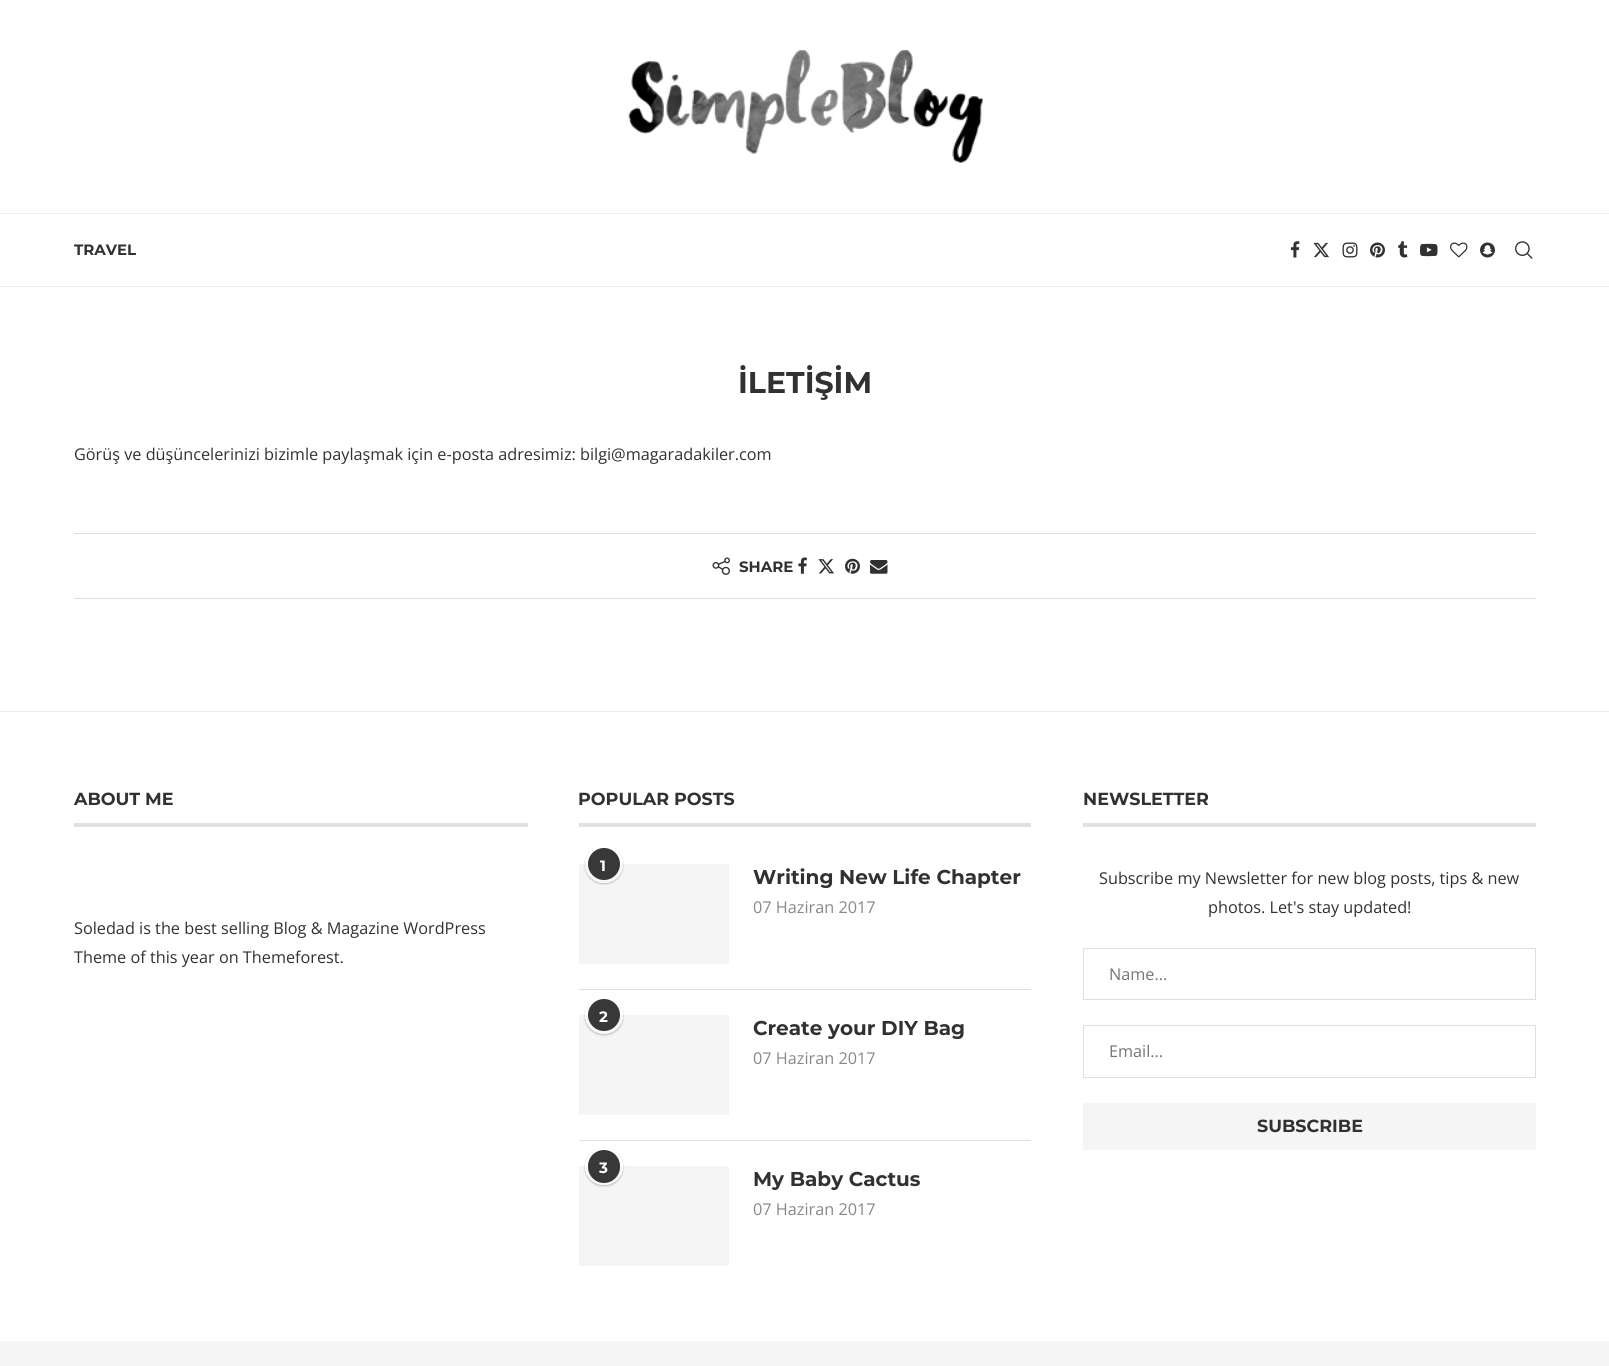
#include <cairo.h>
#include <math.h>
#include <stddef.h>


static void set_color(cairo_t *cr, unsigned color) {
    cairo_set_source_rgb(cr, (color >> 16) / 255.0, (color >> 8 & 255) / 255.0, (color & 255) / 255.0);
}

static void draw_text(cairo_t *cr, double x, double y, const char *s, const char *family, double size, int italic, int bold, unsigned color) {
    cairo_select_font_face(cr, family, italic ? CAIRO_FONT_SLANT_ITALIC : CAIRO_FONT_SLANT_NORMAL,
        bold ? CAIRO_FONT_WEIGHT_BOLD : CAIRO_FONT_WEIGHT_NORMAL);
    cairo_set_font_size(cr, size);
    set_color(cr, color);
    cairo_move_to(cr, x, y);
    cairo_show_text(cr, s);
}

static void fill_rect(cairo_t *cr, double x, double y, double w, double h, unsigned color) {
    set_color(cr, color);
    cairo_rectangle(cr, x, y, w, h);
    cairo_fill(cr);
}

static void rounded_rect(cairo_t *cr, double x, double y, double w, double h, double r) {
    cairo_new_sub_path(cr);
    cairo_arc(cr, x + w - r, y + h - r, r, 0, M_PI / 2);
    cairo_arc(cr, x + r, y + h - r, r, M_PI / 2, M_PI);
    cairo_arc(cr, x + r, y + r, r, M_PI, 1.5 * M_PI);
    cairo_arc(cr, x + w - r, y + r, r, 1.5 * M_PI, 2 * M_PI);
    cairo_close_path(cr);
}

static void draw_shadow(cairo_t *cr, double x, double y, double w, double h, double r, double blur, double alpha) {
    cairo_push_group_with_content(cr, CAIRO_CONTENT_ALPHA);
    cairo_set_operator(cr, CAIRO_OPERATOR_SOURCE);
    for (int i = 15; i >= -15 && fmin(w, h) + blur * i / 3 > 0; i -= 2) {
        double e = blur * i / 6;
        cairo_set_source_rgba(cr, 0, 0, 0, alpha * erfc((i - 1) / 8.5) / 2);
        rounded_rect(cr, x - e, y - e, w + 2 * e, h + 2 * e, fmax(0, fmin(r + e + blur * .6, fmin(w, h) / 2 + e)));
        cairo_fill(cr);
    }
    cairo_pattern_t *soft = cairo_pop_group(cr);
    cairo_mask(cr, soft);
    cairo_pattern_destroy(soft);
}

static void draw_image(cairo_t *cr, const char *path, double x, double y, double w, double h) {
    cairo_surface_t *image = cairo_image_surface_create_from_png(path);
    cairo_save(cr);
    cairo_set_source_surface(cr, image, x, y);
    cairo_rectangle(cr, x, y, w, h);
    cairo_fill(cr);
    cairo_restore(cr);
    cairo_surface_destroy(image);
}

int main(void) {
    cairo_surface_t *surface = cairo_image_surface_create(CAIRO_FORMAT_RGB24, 1609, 1366);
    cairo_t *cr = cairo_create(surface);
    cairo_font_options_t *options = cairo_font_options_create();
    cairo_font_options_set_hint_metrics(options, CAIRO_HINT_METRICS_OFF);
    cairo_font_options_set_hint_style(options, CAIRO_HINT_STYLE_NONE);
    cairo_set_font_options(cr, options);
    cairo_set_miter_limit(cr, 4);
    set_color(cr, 0xFFFFFF);
    cairo_paint(cr);
    draw_image(cr, "assets/img1.png", 628, 50, 355, 113);
    fill_rect(cr, 0, 213, 1609, 1, 0xECECEC);
    fill_rect(cr, 0, 286, 1609, 1, 0xECECEC);
    draw_text(cr, 74, 255, "TRAVEL", "Montserrat", 15, 0, 1, 0x313131);
    draw_image(cr, "assets/img2.png", 1290, 241, 10, 17);
    draw_image(cr, "assets/img3.png", 1313, 242, 16, 16);
    draw_image(cr, "assets/img4.png", 1342, 242, 16, 16);
    draw_image(cr, "assets/img5.png", 1370, 242, 15, 16);
    draw_image(cr, "assets/img6.png", 1398, 241, 10, 17);
    draw_image(cr, "assets/img7.png", 1420, 243, 18, 14);
    draw_image(cr, "assets/img8.png", 1450, 242, 18, 16);
    draw_image(cr, "assets/img9.png", 1480, 242, 15, 16);
    draw_image(cr, "assets/img10.png", 1515, 241, 18, 18);
    draw_text(cr, 738, 393, "İLETİŞİM", "Montserrat", 30, 0, 1, 0x313131);
    draw_text(cr, 74, 460, "Görüş ve düşüncelerinizi bizimle paylaşmak için e-posta adresimiz: bilgi@magaradakiler.com", "Open Sans", 16.25, 0, 0, 0x313131);
    fill_rect(cr, 74, 533, 1462, 1, 0xDEDEDE);
    fill_rect(cr, 74, 598, 1462, 1, 0xDEDEDE);
    draw_image(cr, "assets/img11.png", 712, 557, 18, 18);
    draw_text(cr, 739, 572, "SHARE", "Montserrat", 15, 0, 1, 0x313131);
    draw_image(cr, "assets/img12.png", 798, 557, 9, 17);
    draw_image(cr, "assets/img13.png", 818, 559, 16, 15);
    draw_image(cr, "assets/img14.png", 845, 558, 15, 16);
    draw_image(cr, "assets/img15.png", 870, 560, 18, 14);
    fill_rect(cr, 0, 711, 1609, 1, 0xECECEC);
    fill_rect(cr, 74, 823, 454, 4, 0xE0E0E0);
    draw_text(cr, 74, 805, "ABOUT ME", "Montserrat", 17.5, 0, 1, 0x313131);
    draw_text(cr, 74, 934, "Soledad is the best selling Blog & Magazine WordPress", "Open Sans", 16.25, 0, 0, 0x313131);
    draw_text(cr, 74, 963, "Theme of this year on Themeforest.", "Open Sans", 16.25, 0, 0, 0x313131);
    fill_rect(cr, 579, 823, 452, 4, 0xE0E0E0);
    draw_text(cr, 578, 805, "POPULAR POSTS", "Montserrat", 17.5, 0, 1, 0x313131);
    fill_rect(cr, 579, 989, 452, 1, 0xDEDEDE);
    fill_rect(cr, 579, 864, 150, 100, 0xF5F5F5);
    cairo_save(cr);
    cairo_set_fill_rule(cr, CAIRO_FILL_RULE_EVEN_ODD);
    cairo_new_path(cr);
    cairo_move_to(cr, 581, 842);
    cairo_line_to(cr, 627, 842);
    cairo_line_to(cr, 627, 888);
    cairo_line_to(cr, 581, 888);
    cairo_close_path(cr);
    cairo_move_to(cr, 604, 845);
    cairo_curve_to(cr, 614.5, 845, 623, 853.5, 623, 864);
    cairo_curve_to(cr, 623, 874.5, 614.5, 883, 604, 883);
    cairo_curve_to(cr, 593.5, 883, 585, 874.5, 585, 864);
    cairo_curve_to(cr, 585, 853.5, 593.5, 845, 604, 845);
    cairo_close_path(cr);
    cairo_clip(cr);
    set_color(cr, 0x000000);
    draw_shadow(cr, 585, 846, 38, 38, 19, 1, 0.25);
    cairo_restore(cr);
    cairo_set_source_rgba(cr, 1, 1, 1, 0.3);
    cairo_arc(cr, 604, 864, 19, 0, 2 * M_PI);
    cairo_fill(cr);
    set_color(cr, 0x383838);
    cairo_arc(cr, 604, 864, 16, 0, 2 * M_PI);
    cairo_fill(cr);
    draw_text(cr, 600, 871, "1", "Montserrat", 15, 0, 1, 0xFFFFFF);
    draw_text(cr, 753, 884, "Writing New Life Chapter", "Montserrat", 20, 0, 1, 0x313131);
    draw_text(cr, 753, 913, "07 Haziran 2017", "Open Sans", 16.25, 0, 0, 0x888888);
    fill_rect(cr, 579, 1140, 452, 1, 0xDEDEDE);
    fill_rect(cr, 579, 1015, 150, 100, 0xF5F5F5);
    cairo_save(cr);
    cairo_set_fill_rule(cr, CAIRO_FILL_RULE_EVEN_ODD);
    cairo_new_path(cr);
    cairo_move_to(cr, 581, 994);
    cairo_line_to(cr, 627, 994);
    cairo_line_to(cr, 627, 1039);
    cairo_line_to(cr, 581, 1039);
    cairo_close_path(cr);
    cairo_move_to(cr, 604, 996);
    cairo_curve_to(cr, 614.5, 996, 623, 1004.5, 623, 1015);
    cairo_curve_to(cr, 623, 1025.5, 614.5, 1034, 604, 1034);
    cairo_curve_to(cr, 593.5, 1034, 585, 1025.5, 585, 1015);
    cairo_curve_to(cr, 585, 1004.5, 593.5, 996, 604, 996);
    cairo_close_path(cr);
    cairo_clip(cr);
    set_color(cr, 0x000000);
    draw_shadow(cr, 585, 998, 38, 37, 18.5, 1, 0.25);
    cairo_restore(cr);
    cairo_set_source_rgba(cr, 1, 1, 1, 0.3);
    cairo_arc(cr, 604, 1015, 19, 0, 2 * M_PI);
    cairo_fill(cr);
    set_color(cr, 0x383838);
    cairo_arc(cr, 604, 1015, 16, 0, 2 * M_PI);
    cairo_fill(cr);
    draw_text(cr, 599, 1022, "2", "Montserrat", 15, 0, 1, 0xFFFFFF);
    draw_text(cr, 753, 1035, "Create your DIY Bag", "Montserrat", 20, 0, 1, 0x313131);
    draw_text(cr, 753, 1064, "07 Haziran 2017", "Open Sans", 16.25, 0, 0, 0x888888);
    fill_rect(cr, 579, 1166, 150, 100, 0xF5F5F5);
    cairo_save(cr);
    cairo_set_fill_rule(cr, CAIRO_FILL_RULE_EVEN_ODD);
    cairo_new_path(cr);
    cairo_move_to(cr, 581, 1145);
    cairo_line_to(cr, 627, 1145);
    cairo_line_to(cr, 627, 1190);
    cairo_line_to(cr, 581, 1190);
    cairo_close_path(cr);
    cairo_move_to(cr, 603.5, 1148);
    cairo_line_to(cr, 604.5, 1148);
    cairo_curve_to(cr, 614.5, 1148, 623, 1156.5, 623, 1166.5);
    cairo_curve_to(cr, 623, 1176.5, 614.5, 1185, 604.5, 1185);
    cairo_line_to(cr, 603.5, 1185);
    cairo_curve_to(cr, 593.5, 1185, 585, 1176.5, 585, 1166.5);
    cairo_curve_to(cr, 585, 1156.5, 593.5, 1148, 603.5, 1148);
    cairo_close_path(cr);
    cairo_clip(cr);
    set_color(cr, 0x000000);
    draw_shadow(cr, 585, 1149, 38, 37, 18.5, 1, 0.25);
    cairo_restore(cr);
    cairo_set_source_rgba(cr, 1, 1, 1, 0.3);
    rounded_rect(cr, 585, 1148, 38, 37, 18.5);
    cairo_fill(cr);
    set_color(cr, 0x383838);
    rounded_rect(cr, 588, 1150, 32, 33, 16);
    cairo_fill(cr);
    draw_text(cr, 599, 1173, "3", "Montserrat", 15, 0, 1, 0xFFFFFF);
    draw_text(cr, 753, 1186, "My Baby Cactus", "Montserrat", 20, 0, 1, 0x313131);
    draw_text(cr, 753, 1215, "07 Haziran 2017", "Open Sans", 16.25, 0, 0, 0x888888);
    fill_rect(cr, 1083, 823, 453, 4, 0xE0E0E0);
    draw_text(cr, 1083, 805, "NEWSLETTER", "Montserrat", 17.5, 0, 1, 0x313131);
    draw_text(cr, 1099, 884, "Subscribe my Newsletter for new blog posts, tips & new", "Open Sans", 16.25, 0, 0, 0x313131);
    draw_text(cr, 1208, 913, "photos. Let's stay updated!", "Open Sans", 16.25, 0, 0, 0x313131);
    cairo_rectangle(cr, 1083.5, 948.5, 452, 51);
    set_color(cr, 0xDEDEDE);
    cairo_set_line_width(cr, 1);
    cairo_stroke(cr);
    draw_text(cr, 1109, 980, "Name...", "Open Sans", 16.25, 0, 0, 0x757575);
    cairo_rectangle(cr, 1083.5, 1025.5, 452, 52);
    set_color(cr, 0xDEDEDE);
    cairo_stroke(cr);
    draw_text(cr, 1109, 1057, "Email...", "Open Sans", 16.25, 0, 0, 0x757575);
    fill_rect(cr, 1083, 1103, 453, 47, 0xF5F5F5);
    draw_text(cr, 1257, 1132, "SUBSCRIBE", "Montserrat", 17.5, 0, 1, 0x313131);
    fill_rect(cr, 0, 1341, 1609, 25, 0xF5F5F5);
    cairo_surface_write_to_png(surface, "output.png");
    cairo_font_options_destroy(options);
    cairo_destroy(cr);
    cairo_surface_destroy(surface);
    return 0;
}
